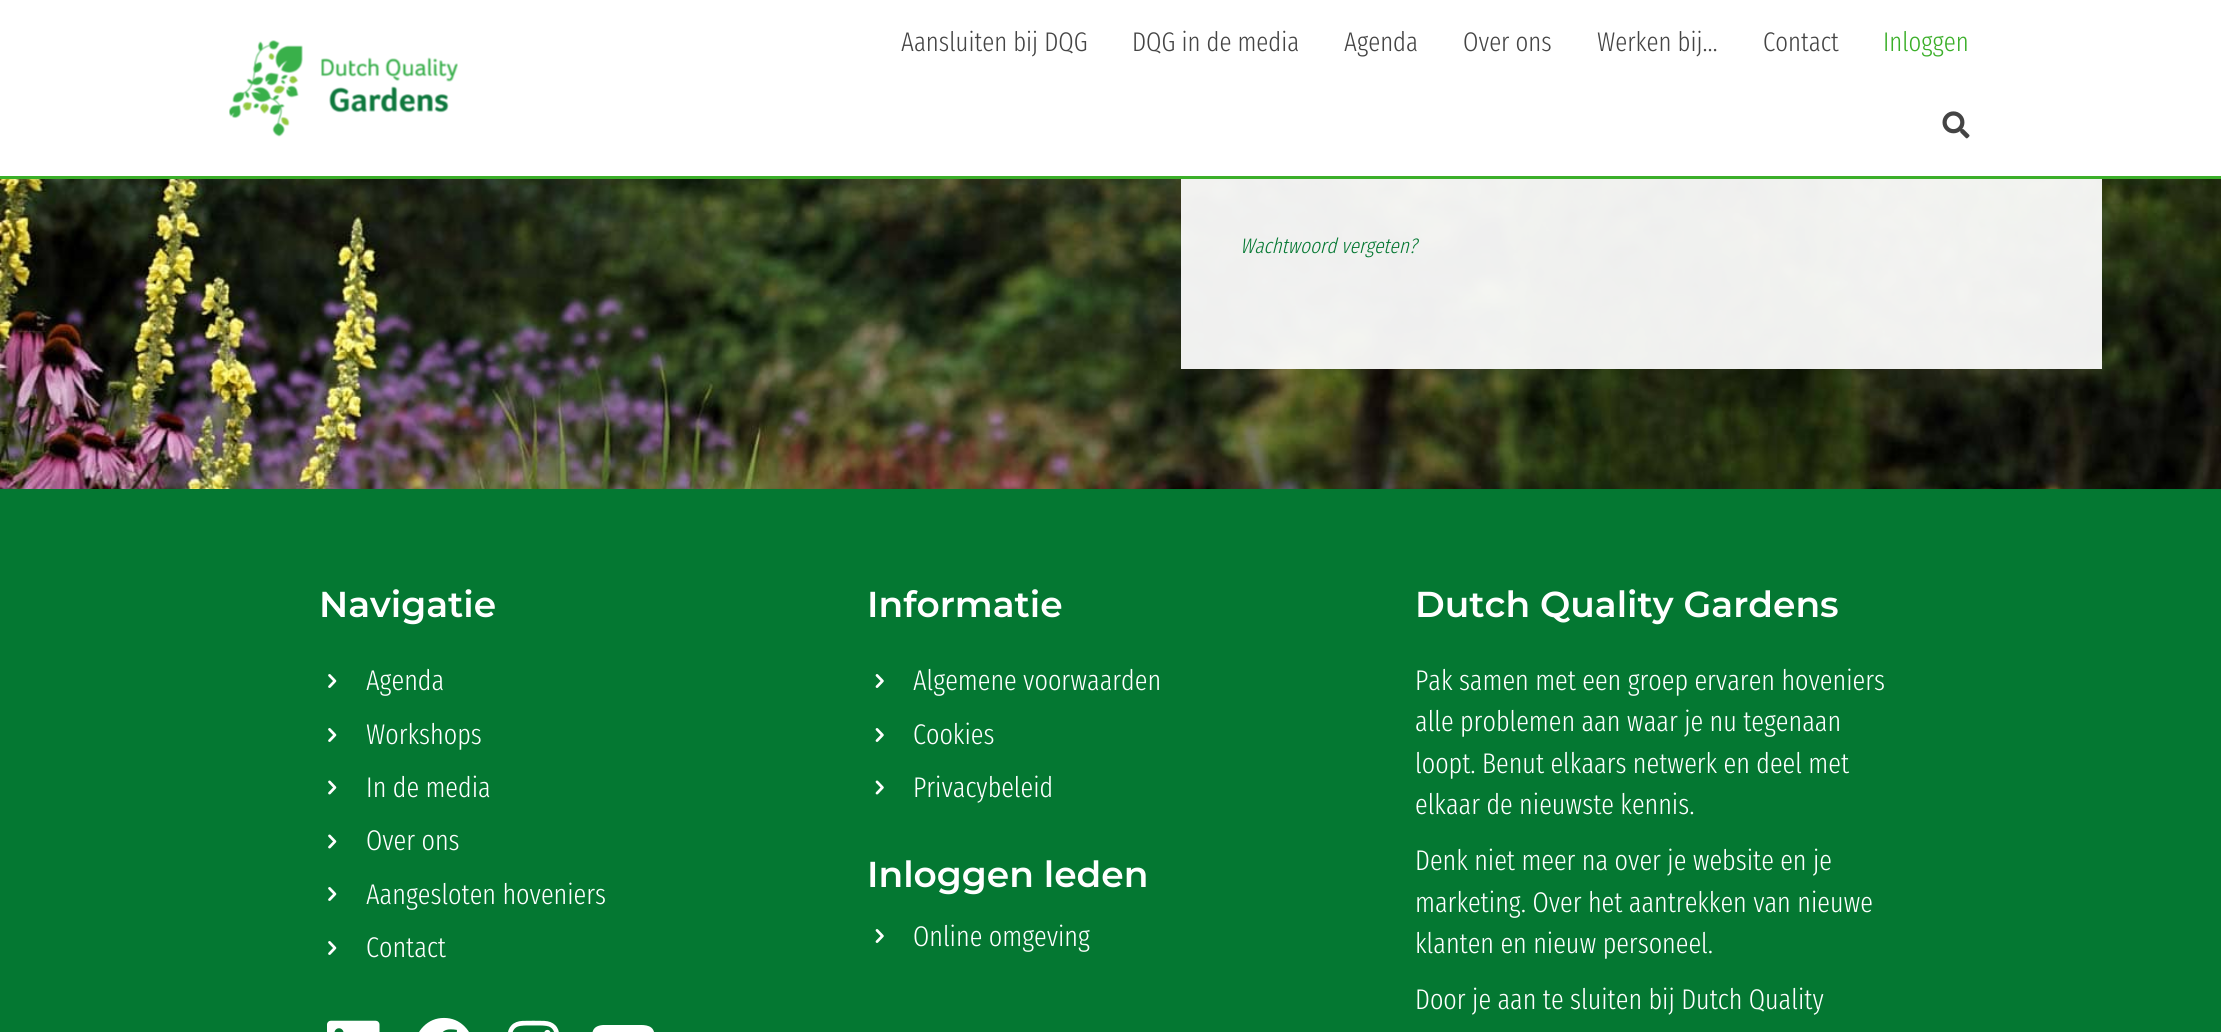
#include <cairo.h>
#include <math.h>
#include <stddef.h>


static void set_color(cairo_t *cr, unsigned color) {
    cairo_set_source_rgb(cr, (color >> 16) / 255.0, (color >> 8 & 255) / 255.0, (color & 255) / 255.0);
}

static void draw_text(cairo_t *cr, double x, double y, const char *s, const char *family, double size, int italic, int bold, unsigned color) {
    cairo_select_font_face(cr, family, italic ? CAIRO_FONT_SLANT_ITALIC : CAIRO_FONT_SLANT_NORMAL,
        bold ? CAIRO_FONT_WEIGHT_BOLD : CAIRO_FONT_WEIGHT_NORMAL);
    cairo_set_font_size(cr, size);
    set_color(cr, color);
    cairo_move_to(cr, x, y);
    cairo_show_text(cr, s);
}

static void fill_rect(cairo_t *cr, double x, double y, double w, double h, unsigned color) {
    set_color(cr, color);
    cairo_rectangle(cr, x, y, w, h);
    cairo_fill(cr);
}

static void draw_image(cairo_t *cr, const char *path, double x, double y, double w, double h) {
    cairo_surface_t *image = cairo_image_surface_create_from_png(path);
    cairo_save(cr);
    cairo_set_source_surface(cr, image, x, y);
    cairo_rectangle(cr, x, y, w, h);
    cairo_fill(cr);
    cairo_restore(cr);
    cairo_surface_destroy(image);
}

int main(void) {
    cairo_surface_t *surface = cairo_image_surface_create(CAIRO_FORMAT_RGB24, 2221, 1032);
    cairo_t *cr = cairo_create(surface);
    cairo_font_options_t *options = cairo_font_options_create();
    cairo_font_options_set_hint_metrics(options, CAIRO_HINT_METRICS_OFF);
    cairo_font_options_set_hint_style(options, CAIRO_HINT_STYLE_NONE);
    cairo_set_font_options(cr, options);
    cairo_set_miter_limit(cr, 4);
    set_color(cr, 0xFFFFFF);
    cairo_paint(cr);
    fill_rect(cr, 0, 176, 2221, 3, 0x3BAF29);
    draw_image(cr, "assets/img1.png", 229, 40, 229, 97);
    draw_text(cr, 901, 51, "Aansluiten bij DQG", "Fira Sans Extra Condensed Light", 27, 0, 0, 0x444444);
    draw_text(cr, 1132, 51, "DQG in de media", "Fira Sans Extra Condensed Light", 27, 0, 0, 0x444444);
    draw_text(cr, 1344, 51, "Agenda", "Fira Sans Extra Condensed Light", 27, 0, 0, 0x444444);
    draw_text(cr, 1463, 51, "Over ons", "Fira Sans Extra Condensed Light", 27, 0, 0, 0x444444);
    draw_text(cr, 1597, 51, "Werken bij…", "Fira Sans Extra Condensed Light", 27, 0, 0, 0x444444);
    draw_text(cr, 1763, 51, "Contact", "Fira Sans Extra Condensed Light", 27, 0, 0, 0x444444);
    draw_text(cr, 1883, 51, "Inloggen", "Fira Sans Extra Condensed Light", 27, 0, 0, 0x3BAF29);
    draw_image(cr, "assets/img2.png", 1942, 111, 28, 28);
    draw_image(cr, "assets/img3.png", 0, 179, 2221, 310);
    cairo_set_source_rgba(cr, 1, 1, 1, 0.93);
    cairo_rectangle(cr, 1181, 179, 921, 190);
    cairo_fill(cr);
    draw_text(cr, 1240, 253, "Wachtwoord vergeten?", "Fira Sans Extra Condensed Light", 21, 1, 0, 0x047832);
    fill_rect(cr, 0, 489, 2221, 543, 0x047832);
    draw_text(cr, 319, 617, "Navigatie", "Montserrat Thin", 36, 0, 0, 0xFFFFFF);
    draw_image(cr, "assets/img4.png", 328, 674, 9, 14);
    draw_text(cr, 366, 690, "Agenda", "Fira Sans Extra Condensed Light", 28.5, 0, 0, 0xFFFFFF);
    draw_image(cr, "assets/img4.png", 328, 728, 9, 14);
    draw_text(cr, 366, 744, "Workshops", "Fira Sans Extra Condensed Light", 28.5, 0, 0, 0xFFFFFF);
    draw_image(cr, "assets/img5.png", 328, 780, 9, 15);
    draw_text(cr, 366, 797, "In de media", "Fira Sans Extra Condensed Light", 28.5, 0, 0, 0xFFFFFF);
    draw_image(cr, "assets/img5.png", 328, 834, 9, 15);
    draw_text(cr, 366, 850, "Over ons", "Fira Sans Extra Condensed Light", 28.5, 0, 0, 0xFFFFFF);
    draw_image(cr, "assets/img4.png", 328, 887, 9, 14);
    draw_text(cr, 366, 904, "Aangesloten hoveniers", "Fira Sans Extra Condensed Light", 28.5, 0, 0, 0xFFFFFF);
    draw_image(cr, "assets/img4.png", 328, 941, 9, 14);
    draw_text(cr, 366, 957, "Contact", "Fira Sans Extra Condensed Light", 28.5, 0, 0, 0xFFFFFF);
    draw_image(cr, "assets/img6.png", 327, 1020, 53, 12);
    draw_image(cr, "assets/img7.png", 419, 1017, 50, 15);
    draw_image(cr, "assets/img8.png", 508, 1020, 51, 12);
    cairo_new_path(cr);
    cairo_move_to(cr, 654, 1032);
    cairo_curve_to(cr, 656, 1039, 657, 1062, 652, 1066);
    cairo_curve_to(cr, 646, 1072, 602, 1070, 597, 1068);
    cairo_curve_to(cr, 595, 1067, 593, 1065, 593, 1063);
    cairo_curve_to(cr, 591, 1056, 591, 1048, 591, 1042);
    cairo_curve_to(cr, 592, 1032, 592, 1026, 603, 1025);
    cairo_line_to(cr, 617, 1025);
    cairo_line_to(cr, 636, 1025);
    cairo_curve_to(cr, 642, 1025, 652, 1024, 654, 1032);
    cairo_close_path(cr);
    cairo_move_to(cr, 617, 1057);
    cairo_line_to(cr, 633, 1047);
    cairo_line_to(cr, 617, 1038);
    cairo_close_path(cr);
    cairo_fill(cr);
    draw_text(cr, 867, 617, "Informatie", "Montserrat Thin", 36, 0, 0, 0xFFFFFF);
    draw_image(cr, "assets/img9.png", 875, 674, 9, 14);
    draw_text(cr, 913, 690, "Algemene voorwaarden", "Fira Sans Extra Condensed Light", 28.5, 0, 0, 0xFFFFFF);
    draw_image(cr, "assets/img9.png", 875, 728, 9, 14);
    draw_text(cr, 913, 744, "Cookies", "Fira Sans Extra Condensed Light", 28.5, 0, 0, 0xFFFFFF);
    draw_image(cr, "assets/img10.png", 875, 780, 9, 15);
    draw_text(cr, 913, 797, "Privacybeleid", "Fira Sans Extra Condensed Light", 28.5, 0, 0, 0xFFFFFF);
    draw_text(cr, 867, 887, "Inloggen leden", "Montserrat Thin", 36, 0, 0, 0xFFFFFF);
    draw_image(cr, "assets/img9.png", 875, 929, 9, 14);
    draw_text(cr, 913, 946, "Online omgeving", "Fira Sans Extra Condensed Light", 28.5, 0, 0, 0xFFFFFF);
    draw_text(cr, 1415, 617, "Dutch Quality Gardens", "Montserrat Thin", 36, 0, 0, 0xFFFFFF);
    draw_text(cr, 1415, 690, "Pak samen met een groep ervaren hoveniers", "Fira Sans Extra Condensed Light", 28.5, 0, 0, 0xFFFFFF);
    draw_text(cr, 1415, 731, "alle problemen aan waar je nu tegenaan", "Fira Sans Extra Condensed Light", 28.5, 0, 0, 0xFFFFFF);
    draw_text(cr, 1415, 773, "loopt. Benut elkaars netwerk en deel met", "Fira Sans Extra Condensed Light", 28.5, 0, 0, 0xFFFFFF);
    draw_text(cr, 1415, 814, "elkaar de nieuwste kennis.", "Fira Sans Extra Condensed Light", 28.5, 0, 0, 0xFFFFFF);
    draw_text(cr, 1415, 870, "Denk niet meer na over je website en je", "Fira Sans Extra Condensed Light", 28.5, 0, 0, 0xFFFFFF);
    draw_text(cr, 1415, 912, "marketing. Over het aantrekken van nieuwe", "Fira Sans Extra Condensed Light", 28.5, 0, 0, 0xFFFFFF);
    draw_text(cr, 1415, 953, "klanten en nieuw personeel.", "Fira Sans Extra Condensed Light", 28.5, 0, 0, 0xFFFFFF);
    draw_text(cr, 1415, 1009, "Door je aan te sluiten bij Dutch Quality", "Fira Sans Extra Condensed Light", 28.5, 0, 0, 0xFFFFFF);
    cairo_surface_write_to_png(surface, "output.png");
    cairo_font_options_destroy(options);
    cairo_destroy(cr);
    cairo_surface_destroy(surface);
    return 0;
}
